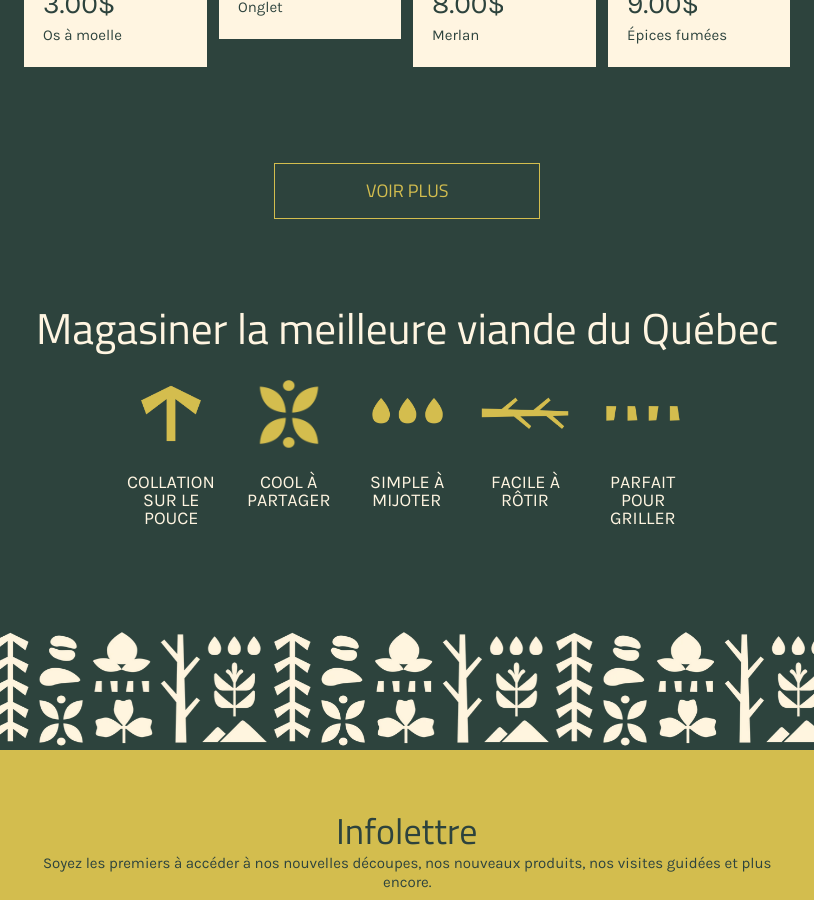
#include <cairo.h>
#include <math.h>
#include <stddef.h>


static void set_color(cairo_t *cr, unsigned color) {
    cairo_set_source_rgb(cr, (color >> 16) / 255.0, (color >> 8 & 255) / 255.0, (color & 255) / 255.0);
}

static void draw_text(cairo_t *cr, double x, double y, const char *s, const char *family, double size, int italic, int bold, unsigned color) {
    cairo_select_font_face(cr, family, italic ? CAIRO_FONT_SLANT_ITALIC : CAIRO_FONT_SLANT_NORMAL,
        bold ? CAIRO_FONT_WEIGHT_BOLD : CAIRO_FONT_WEIGHT_NORMAL);
    cairo_set_font_size(cr, size);
    set_color(cr, color);
    cairo_move_to(cr, x, y);
    cairo_show_text(cr, s);
}

static void fill_rect(cairo_t *cr, double x, double y, double w, double h, unsigned color) {
    set_color(cr, color);
    cairo_rectangle(cr, x, y, w, h);
    cairo_fill(cr);
}

static void draw_image(cairo_t *cr, const char *path, double x, double y, double w, double h) {
    cairo_surface_t *image = cairo_image_surface_create_from_png(path);
    cairo_save(cr);
    cairo_set_source_surface(cr, image, x, y);
    cairo_rectangle(cr, x, y, w, h);
    cairo_fill(cr);
    cairo_restore(cr);
    cairo_surface_destroy(image);
}

int main(void) {
    cairo_surface_t *surface = cairo_image_surface_create(CAIRO_FORMAT_RGB24, 814, 900);
    cairo_t *cr = cairo_create(surface);
    cairo_font_options_t *options = cairo_font_options_create();
    cairo_font_options_set_hint_metrics(options, CAIRO_HINT_METRICS_OFF);
    cairo_font_options_set_hint_style(options, CAIRO_HINT_STYLE_NONE);
    cairo_set_font_options(cr, options);
    cairo_set_miter_limit(cr, 4);
    set_color(cr, 0x2D433D);
    cairo_paint(cr);
    fill_rect(cr, 24, 0, 183, 67, 0xFFF5E1);
    draw_text(cr, 43, 13, "3.00$", "Karla", 28, 0, 0, 0x2D433D);
    draw_text(cr, 43, 40, "Os à moelle", "Karla", 15, 0, 0, 0x2D433D);
    fill_rect(cr, 219, 0, 182, 39, 0xFFF5E1);
    draw_text(cr, 238, 12, "Onglet", "Karla", 15, 0, 0, 0x2D433D);
    fill_rect(cr, 413, 0, 183, 67, 0xFFF5E1);
    draw_text(cr, 432, 13, "8.00$", "Karla", 28, 0, 0, 0x2D433D);
    draw_text(cr, 432, 40, "Merlan", "Karla", 15, 0, 0, 0x2D433D);
    fill_rect(cr, 608, 0, 182, 67, 0xFFF5E1);
    draw_text(cr, 627, 13, "9.00$", "Karla", 28, 0, 0, 0x2D433D);
    draw_text(cr, 627, 40, "Épices fumées", "Karla", 15, 0, 0, 0x2D433D);
    cairo_rectangle(cr, 274.5, 163.5, 265, 55);
    set_color(cr, 0xD3BD4E);
    cairo_set_line_width(cr, 1);
    cairo_stroke(cr);
    draw_text(cr, 366, 197, "VOIR PLUS", "Titillium Web", 18, 0, 0, 0xD3BD4E);
    draw_text(cr, 36, 344, "Magasiner la meilleure viande du Québec", "Titillium Web", 43.25, 0, 0, 0xFFF5E1);
    draw_image(cr, "assets/img1.png", 141, 385, 60, 57);
    draw_text(cr, 127, 488, "COLLATION", "Karla", 18, 0, 0, 0xFFF5E1);
    draw_text(cr, 143, 506, "SUR LE", "Karla", 18, 0, 0, 0xFFF5E1);
    draw_text(cr, 144, 524, "POUCE", "Karla", 18, 0, 0, 0xFFF5E1);
    draw_image(cr, "assets/img2.png", 259, 380, 60, 68);
    draw_text(cr, 260, 488, "COOL À", "Karla", 18, 0, 0, 0xFFF5E1);
    draw_text(cr, 247, 506, "PARTAGER", "Karla", 18, 0, 0, 0xFFF5E1);
    draw_image(cr, "assets/img3.png", 372, 398, 71, 26);
    draw_text(cr, 370, 488, "SIMPLE À", "Karla", 18, 0, 0, 0xFFF5E1);
    draw_text(cr, 372, 506, "MIJOTER", "Karla", 18, 0, 0, 0xFFF5E1);
    draw_image(cr, "assets/img4.png", 481, 397, 88, 32);
    draw_text(cr, 491, 488, "FACILE À", "Karla", 18, 0, 0, 0xFFF5E1);
    draw_text(cr, 501, 506, "RÔTIR", "Karla", 18, 0, 0, 0xFFF5E1);
    draw_image(cr, "assets/img5.png", 606, 406, 74, 15);
    draw_text(cr, 610, 488, "PARFAIT", "Karla", 18, 0, 0, 0xFFF5E1);
    draw_text(cr, 621, 506, "POUR", "Karla", 18, 0, 0, 0xFFF5E1);
    draw_text(cr, 610, 524, "GRILLER", "Karla", 18, 0, 0, 0xFFF5E1);
    draw_image(cr, "assets/img6.png", 0, 632, 814, 114);
    fill_rect(cr, 0, 750, 814, 150, 0xD3BD4E);
    draw_text(cr, 336, 844, "Infolettre", "Titillium Web", 36, 0, 0, 0x2D433D);
    draw_text(cr, 43, 868, "Soyez les premiers à accéder à nos nouvelles découpes, nos nouveaux produits, nos visites guidées et plus", "Karla", 15, 0, 0, 0x2D433D);
    draw_text(cr, 383, 887, "encore.", "Karla", 15, 0, 0, 0x2D433D);
    cairo_surface_write_to_png(surface, "output.png");
    cairo_font_options_destroy(options);
    cairo_destroy(cr);
    cairo_surface_destroy(surface);
    return 0;
}
